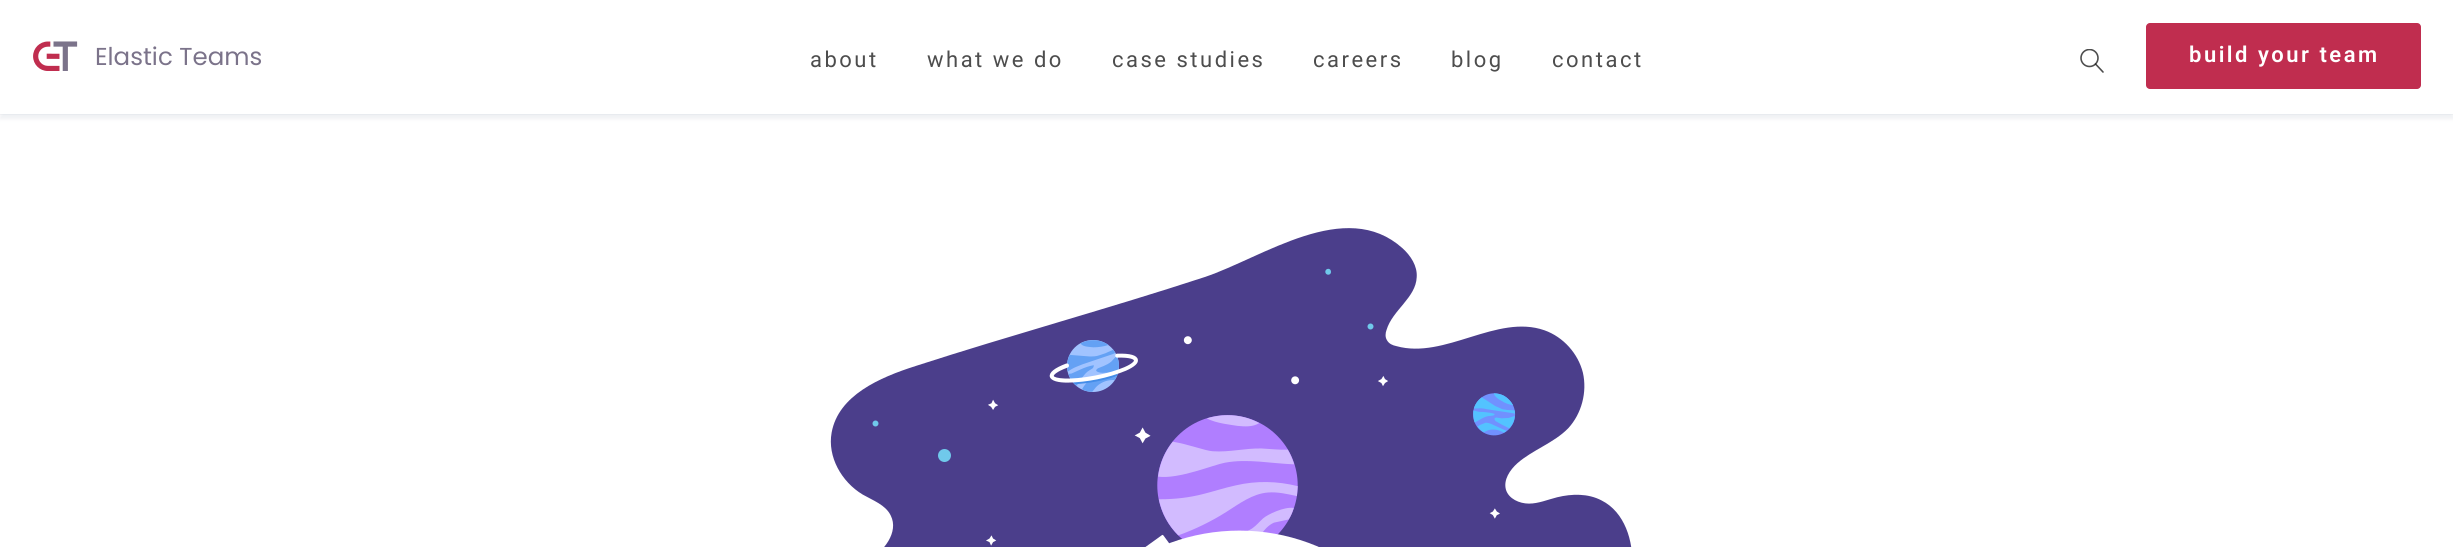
#include <cairo.h>
#include <math.h>
#include <stddef.h>


static void set_color(cairo_t *cr, unsigned color) {
    cairo_set_source_rgb(cr, (color >> 16) / 255.0, (color >> 8 & 255) / 255.0, (color & 255) / 255.0);
}

static void draw_text(cairo_t *cr, double x, double y, const char *s, const char *family, double size, int italic, int bold, unsigned color) {
    cairo_select_font_face(cr, family, italic ? CAIRO_FONT_SLANT_ITALIC : CAIRO_FONT_SLANT_NORMAL,
        bold ? CAIRO_FONT_WEIGHT_BOLD : CAIRO_FONT_WEIGHT_NORMAL);
    cairo_set_font_size(cr, size);
    set_color(cr, color);
    cairo_move_to(cr, x, y);
    cairo_show_text(cr, s);
}

static void draw_spaced(cairo_t *cr, double x, double y, const char *s, double letter, double word) {
    cairo_move_to(cr, x, y);
    while (*s) {
        char ch[5] = {0};
        int n = 0;
        do ch[n++] = *s++; while ((*s & 0xC0) == 0x80);
        cairo_show_text(cr, ch);
        cairo_rel_move_to(cr, letter + word * (*ch == ' '), 0);
    }
}

static void fill_rect(cairo_t *cr, double x, double y, double w, double h, unsigned color) {
    set_color(cr, color);
    cairo_rectangle(cr, x, y, w, h);
    cairo_fill(cr);
}

static void rounded_rect(cairo_t *cr, double x, double y, double w, double h, double r) {
    cairo_new_sub_path(cr);
    cairo_arc(cr, x + w - r, y + h - r, r, 0, M_PI / 2);
    cairo_arc(cr, x + r, y + h - r, r, M_PI / 2, M_PI);
    cairo_arc(cr, x + r, y + r, r, M_PI, 1.5 * M_PI);
    cairo_arc(cr, x + w - r, y + r, r, 1.5 * M_PI, 2 * M_PI);
    cairo_close_path(cr);
}

static void draw_shadow(cairo_t *cr, double x, double y, double w, double h, double r, double blur, double alpha) {
    cairo_push_group_with_content(cr, CAIRO_CONTENT_ALPHA);
    cairo_set_operator(cr, CAIRO_OPERATOR_SOURCE);
    for (int i = 15; i >= -15 && fmin(w, h) + blur * i / 3 > 0; i -= 2) {
        double e = blur * i / 6;
        cairo_set_source_rgba(cr, 0, 0, 0, alpha * erfc((i - 1) / 8.5) / 2);
        rounded_rect(cr, x - e, y - e, w + 2 * e, h + 2 * e, fmax(0, fmin(r + e + blur * .6, fmin(w, h) / 2 + e)));
        cairo_fill(cr);
    }
    cairo_pattern_t *soft = cairo_pop_group(cr);
    cairo_mask(cr, soft);
    cairo_pattern_destroy(soft);
}

static void draw_image(cairo_t *cr, const char *path, double x, double y, double w, double h) {
    cairo_surface_t *image = cairo_image_surface_create_from_png(path);
    cairo_save(cr);
    cairo_set_source_surface(cr, image, x, y);
    cairo_rectangle(cr, x, y, w, h);
    cairo_fill(cr);
    cairo_restore(cr);
    cairo_surface_destroy(image);
}

int main(void) {
    cairo_surface_t *surface = cairo_image_surface_create(CAIRO_FORMAT_RGB24, 2453, 547);
    cairo_t *cr = cairo_create(surface);
    cairo_font_options_t *options = cairo_font_options_create();
    cairo_font_options_set_hint_metrics(options, CAIRO_HINT_METRICS_OFF);
    cairo_font_options_set_hint_style(options, CAIRO_HINT_STYLE_NONE);
    cairo_set_font_options(cr, options);
    cairo_set_miter_limit(cr, 4);
    set_color(cr, 0xFFFFFF);
    cairo_paint(cr);
    set_color(cr, 0x79869E);
    draw_shadow(cr, 0, 0, 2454, 114, 0, 0.5, 0.25);
    draw_shadow(cr, 0, 5, 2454, 114, 0, 2, 0.12);
    fill_rect(cr, 0, 0, 2453, 114, 0xFFFFFF);
    draw_image(cr, "assets/img1.png", 33, 41, 45, 30);
    draw_text(cr, 95, 65, "Elastic Teams", "Poppins", 24.5, 0, 0, 0x7B738A);
    cairo_select_font_face(cr, "Roboto", CAIRO_FONT_SLANT_NORMAL, CAIRO_FONT_WEIGHT_NORMAL);
    cairo_set_font_size(cr, 22);
    set_color(cr, 0x4D4D4D);
    draw_spaced(cr, 810, 67, "about", 2.5, 0);
    draw_spaced(cr, 927, 67, "what we do", 2.5, 0);
    draw_spaced(cr, 1112, 67, "case studies", 2.5, 0);
    draw_spaced(cr, 1313, 67, "careers", 2.5, 0);
    draw_spaced(cr, 1451, 67, "blog", 2.5, 0);
    draw_spaced(cr, 1552, 67, "contact", 2.5, 0);
    cairo_save(cr);
    cairo_rectangle(cr, 2080, 49, 24, 24);
    cairo_clip(cr);
    cairo_arc(cr, 2089.5, 58, 8.5, 0, 2 * M_PI);
    cairo_set_line_width(cr, 1.6);
    cairo_stroke(cr);
    cairo_restore(cr);
    cairo_new_path(cr);
    cairo_move_to(cr, 2103, 72);
    cairo_line_to(cr, 2095.5, 64);
    cairo_set_source_rgba(cr, 0.125, 0.125, 0.125, 0.8);
    cairo_set_line_width(cr, 1.6);
    cairo_set_line_cap(cr, CAIRO_LINE_CAP_ROUND);
    cairo_set_line_join(cr, CAIRO_LINE_JOIN_ROUND);
    cairo_stroke(cr);
    set_color(cr, 0xC02D4F);
    rounded_rect(cr, 2146, 23, 275, 66, 4);
    cairo_fill(cr);
    cairo_select_font_face(cr, "Roboto SemiBold", CAIRO_FONT_SLANT_NORMAL, CAIRO_FONT_WEIGHT_NORMAL);
    set_color(cr, 0xFFFFFF);
    draw_spaced(cr, 2189, 62, "build your team", 2.5, 0);
    draw_image(cr, "assets/img2.png", 830, 228, 802, 319);
    cairo_surface_write_to_png(surface, "output.png");
    cairo_font_options_destroy(options);
    cairo_destroy(cr);
    cairo_surface_destroy(surface);
    return 0;
}
